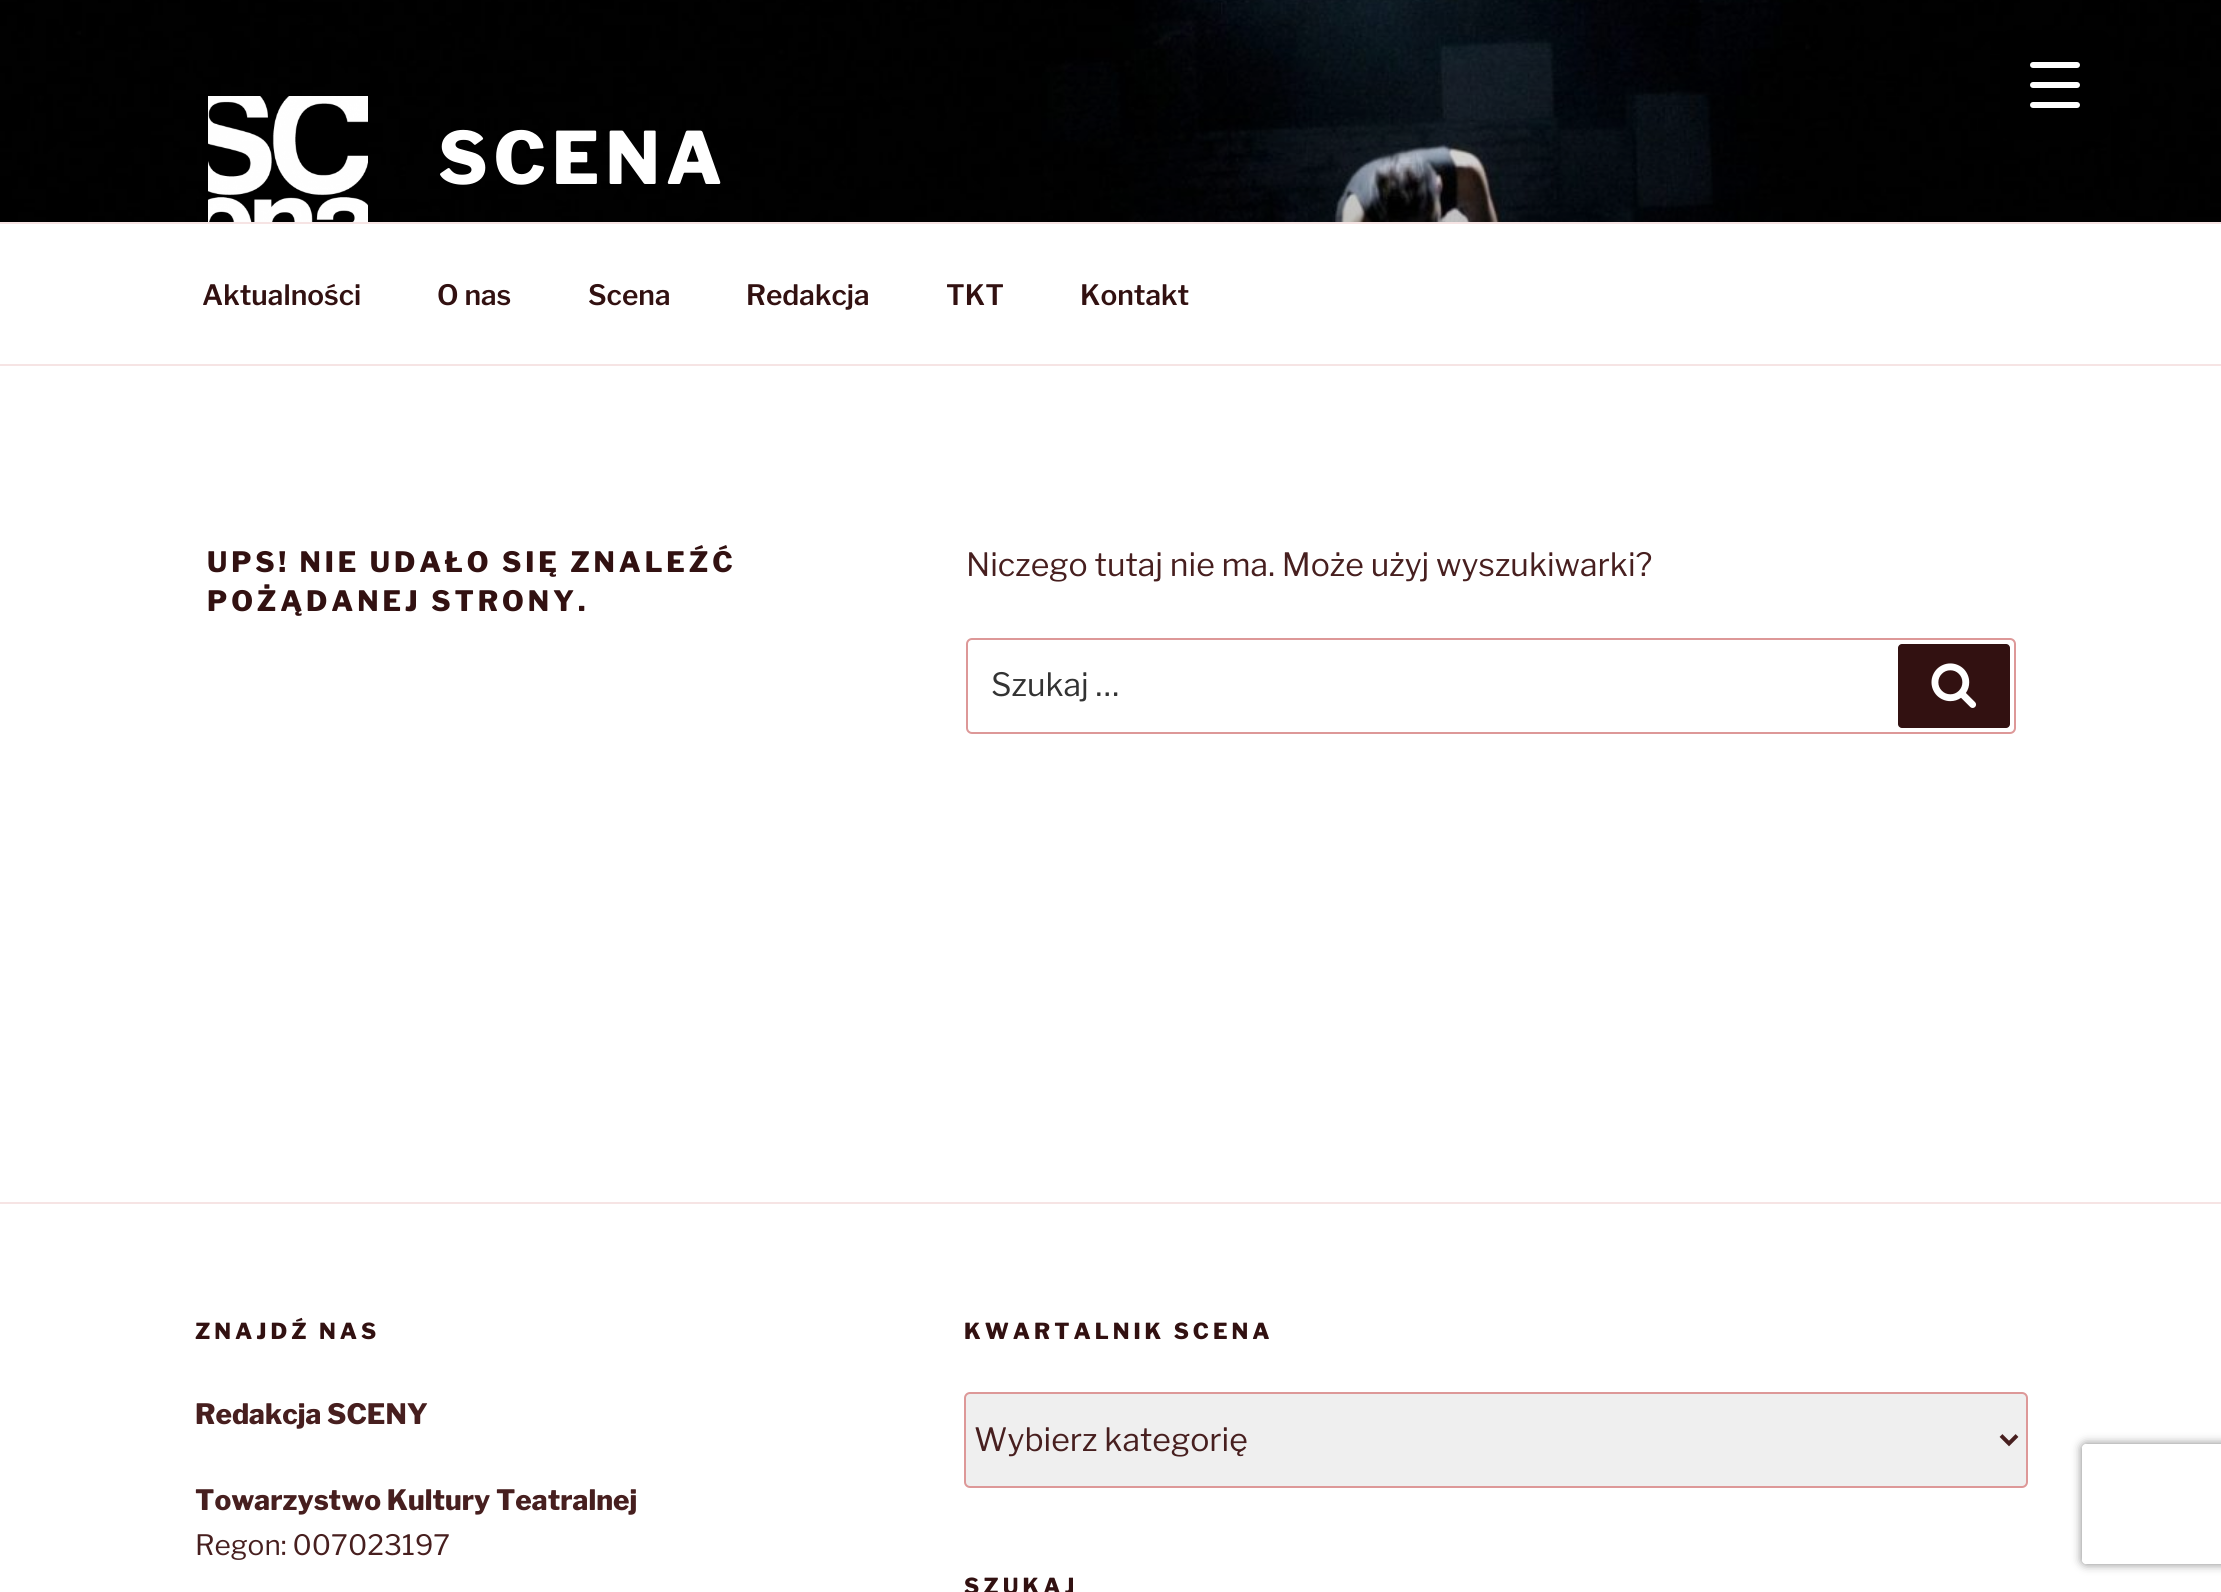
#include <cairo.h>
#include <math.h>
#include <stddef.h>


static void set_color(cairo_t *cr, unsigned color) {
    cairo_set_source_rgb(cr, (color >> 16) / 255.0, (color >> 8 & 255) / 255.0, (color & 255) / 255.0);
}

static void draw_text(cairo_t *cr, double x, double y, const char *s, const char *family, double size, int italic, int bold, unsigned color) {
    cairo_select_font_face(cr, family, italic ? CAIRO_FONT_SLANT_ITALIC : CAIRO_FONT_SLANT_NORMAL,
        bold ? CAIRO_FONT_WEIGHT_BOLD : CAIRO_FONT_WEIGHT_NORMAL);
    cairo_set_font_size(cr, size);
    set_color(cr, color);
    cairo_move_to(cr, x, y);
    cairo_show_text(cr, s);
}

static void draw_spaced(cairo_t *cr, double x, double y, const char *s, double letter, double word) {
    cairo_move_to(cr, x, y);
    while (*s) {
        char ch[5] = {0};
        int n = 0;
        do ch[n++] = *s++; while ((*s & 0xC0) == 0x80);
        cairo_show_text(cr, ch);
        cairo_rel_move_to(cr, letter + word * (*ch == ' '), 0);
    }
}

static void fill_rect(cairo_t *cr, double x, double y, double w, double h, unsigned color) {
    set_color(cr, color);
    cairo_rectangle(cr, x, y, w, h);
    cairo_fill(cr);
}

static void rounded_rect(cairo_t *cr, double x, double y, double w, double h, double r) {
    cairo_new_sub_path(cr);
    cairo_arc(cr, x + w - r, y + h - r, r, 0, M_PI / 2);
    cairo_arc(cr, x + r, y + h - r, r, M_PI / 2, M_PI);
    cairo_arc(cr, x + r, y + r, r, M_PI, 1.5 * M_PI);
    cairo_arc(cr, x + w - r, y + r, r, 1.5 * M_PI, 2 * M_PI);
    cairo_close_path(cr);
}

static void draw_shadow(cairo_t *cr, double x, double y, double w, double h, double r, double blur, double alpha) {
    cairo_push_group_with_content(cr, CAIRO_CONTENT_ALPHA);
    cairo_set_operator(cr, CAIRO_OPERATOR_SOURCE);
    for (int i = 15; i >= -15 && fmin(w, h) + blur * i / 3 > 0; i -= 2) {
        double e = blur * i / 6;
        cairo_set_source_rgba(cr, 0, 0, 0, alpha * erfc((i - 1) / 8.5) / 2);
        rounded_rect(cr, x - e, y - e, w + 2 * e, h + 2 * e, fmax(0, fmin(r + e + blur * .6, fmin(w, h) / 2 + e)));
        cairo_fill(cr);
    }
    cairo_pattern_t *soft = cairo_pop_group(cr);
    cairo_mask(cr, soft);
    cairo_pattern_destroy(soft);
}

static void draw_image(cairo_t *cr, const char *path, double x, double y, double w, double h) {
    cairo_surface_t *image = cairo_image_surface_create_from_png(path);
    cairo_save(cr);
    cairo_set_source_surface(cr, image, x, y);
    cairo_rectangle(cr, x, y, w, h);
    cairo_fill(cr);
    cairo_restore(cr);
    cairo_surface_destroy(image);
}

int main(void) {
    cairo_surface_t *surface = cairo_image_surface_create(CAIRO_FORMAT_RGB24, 2221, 1592);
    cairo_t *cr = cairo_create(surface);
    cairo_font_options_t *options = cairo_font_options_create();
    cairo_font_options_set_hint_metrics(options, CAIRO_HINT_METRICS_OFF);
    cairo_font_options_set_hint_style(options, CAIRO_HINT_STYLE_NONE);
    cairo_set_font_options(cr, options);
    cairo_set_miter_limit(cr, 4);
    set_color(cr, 0xFFFFFF);
    cairo_paint(cr);
    draw_image(cr, "assets/img1.png", 0, 0, 2221, 222);
    set_color(cr, 0x000000);
    rounded_rect(cr, 2000, 30, 110, 110, 10);
    cairo_fill(cr);
    set_color(cr, 0xFFFFFF);
    rounded_rect(cr, 2030, 82, 50, 6, 3);
    cairo_fill(cr);
    rounded_rect(cr, 2030, 62, 50, 6, 3);
    cairo_fill(cr);
    rounded_rect(cr, 2030, 102, 50, 6, 3);
    cairo_fill(cr);
    draw_image(cr, "assets/img2.png", 208, 96, 160, 126);
    cairo_select_font_face(cr, "Libre Franklin Thin", CAIRO_FONT_SLANT_NORMAL, CAIRO_FONT_WEIGHT_NORMAL);
    cairo_set_font_size(cr, 72);
    draw_spaced(cr, 438, 184, "SCENA", 5.75, 0);
    fill_rect(cr, 0, 222, 2221, 2, 0xF6E4E4);
    fill_rect(cr, 0, 364, 2221, 2, 0xF6E4E4);
    draw_text(cr, 202, 305, "Aktualności", "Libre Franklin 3 Thin", 28, 0, 0, 0x321111);
    draw_text(cr, 437, 305, "O nas", "Libre Franklin 3 Thin", 28, 0, 0, 0x321111);
    draw_text(cr, 588, 305, "Scena", "Libre Franklin 3 Thin", 28, 0, 0, 0x321111);
    draw_text(cr, 746, 305, "Redakcja", "Libre Franklin 3 Thin", 28, 0, 0, 0x321111);
    draw_text(cr, 946, 305, "TKT", "Libre Franklin 3 Thin", 28, 0, 0, 0x321111);
    draw_text(cr, 1080, 305, "Kontakt", "Libre Franklin 3 Thin", 28, 0, 0, 0x321111);
    cairo_select_font_face(cr, "Libre Franklin Thin", CAIRO_FONT_SLANT_NORMAL, CAIRO_FONT_WEIGHT_NORMAL);
    draw_spaced(cr, 207, 572, "UPS! NIE UDAŁO SIĘ ZNALEŹĆ", 3.9, 0);
    draw_spaced(cr, 207, 611, "POŻĄDANEJ STRONY.", 3.9, 0);
    draw_text(cr, 966, 576, "Niczego tutaj nie ma. Może użyj wyszukiwarki?", "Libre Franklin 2 Thin", 32, 0, 0, 0x471F1F);
    rounded_rect(cr, 967, 639, 1048, 94, 5);
    set_color(cr, 0xDD9898);
    cairo_stroke(cr);
    draw_text(cr, 991, 696, "Szukaj …", "Libre Franklin 2 Thin", 32, 0, 0, 0x333333);
    set_color(cr, 0x321111);
    rounded_rect(cr, 1898, 644, 112, 84, 4);
    cairo_fill(cr);
    draw_image(cr, "assets/img3.png", 1931, 663, 46, 45);
    fill_rect(cr, 0, 1202, 2221, 2, 0xF6E4E4);
    cairo_select_font_face(cr, "Libre Franklin Thin", CAIRO_FONT_SLANT_NORMAL, CAIRO_FONT_WEIGHT_NORMAL);
    cairo_set_font_size(cr, 22);
    set_color(cr, 0x321111);
    draw_spaced(cr, 195, 1339, "ZNAJDŹ NAS", 4, 0);
    draw_text(cr, 195, 1424, "Redakcja SCENY", "Libre Franklin Thin", 28, 0, 0, 0x471F1F);
    draw_text(cr, 195, 1510, "Towarzystwo Kultury Teatralnej", "Libre Franklin Thin", 28, 0, 0, 0x471F1F);
    draw_text(cr, 195, 1555, "Regon: 007023197", "Libre Franklin 2 Thin", 28, 0, 0, 0x471F1F);
    cairo_select_font_face(cr, "Libre Franklin Thin", CAIRO_FONT_SLANT_NORMAL, CAIRO_FONT_WEIGHT_NORMAL);
    cairo_set_font_size(cr, 22);
    set_color(cr, 0x321111);
    draw_spaced(cr, 964, 1339, "KWARTALNIK SCENA", 4, 0);
    set_color(cr, 0xEFEFEF);
    rounded_rect(cr, 965, 1393, 1062, 94, 5);
    cairo_fill_preserve(cr);
    set_color(cr, 0xDD9898);
    cairo_stroke(cr);
    cairo_new_path(cr);
    cairo_move_to(cr, 2001, 1435.5);
    cairo_line_to(cr, 2009, 1443.5);
    cairo_line_to(cr, 2017, 1435.5);
    set_color(cr, 0x471F1F);
    cairo_set_line_width(cr, 4);
    cairo_stroke(cr);
    draw_text(cr, 974, 1451, "Wybierz kategorię", "Libre Franklin 2 Thin", 32, 0, 0, 0x471F1F);
    cairo_select_font_face(cr, "Libre Franklin Thin", CAIRO_FONT_SLANT_NORMAL, CAIRO_FONT_WEIGHT_NORMAL);
    cairo_set_font_size(cr, 22);
    set_color(cr, 0x321111);
    draw_spaced(cr, 964, 1594, "SZUKAJ", 4, 0);
    cairo_save(cr);
    cairo_set_fill_rule(cr, CAIRO_FILL_RULE_EVEN_ODD);
    cairo_new_path(cr);
    cairo_move_to(cr, 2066, 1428);
    cairo_line_to(cr, 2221, 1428);
    cairo_line_to(cr, 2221, 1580);
    cairo_line_to(cr, 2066, 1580);
    cairo_close_path(cr);
    cairo_move_to(cr, 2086, 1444);
    cairo_line_to(cr, 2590, 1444);
    cairo_curve_to(cr, 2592, 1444, 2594, 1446, 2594, 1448);
    cairo_line_to(cr, 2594, 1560);
    cairo_curve_to(cr, 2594, 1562, 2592, 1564, 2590, 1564);
    cairo_line_to(cr, 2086, 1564);
    cairo_curve_to(cr, 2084, 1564, 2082, 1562, 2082, 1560);
    cairo_line_to(cr, 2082, 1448);
    cairo_curve_to(cr, 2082, 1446, 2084, 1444, 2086, 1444);
    cairo_close_path(cr);
    cairo_clip(cr);
    set_color(cr, 0x808080);
    draw_shadow(cr, 2082, 1444, 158, 120, 4, 5, 1);
    cairo_restore(cr);
    cairo_surface_write_to_png(surface, "output.png");
    cairo_font_options_destroy(options);
    cairo_destroy(cr);
    cairo_surface_destroy(surface);
    return 0;
}
